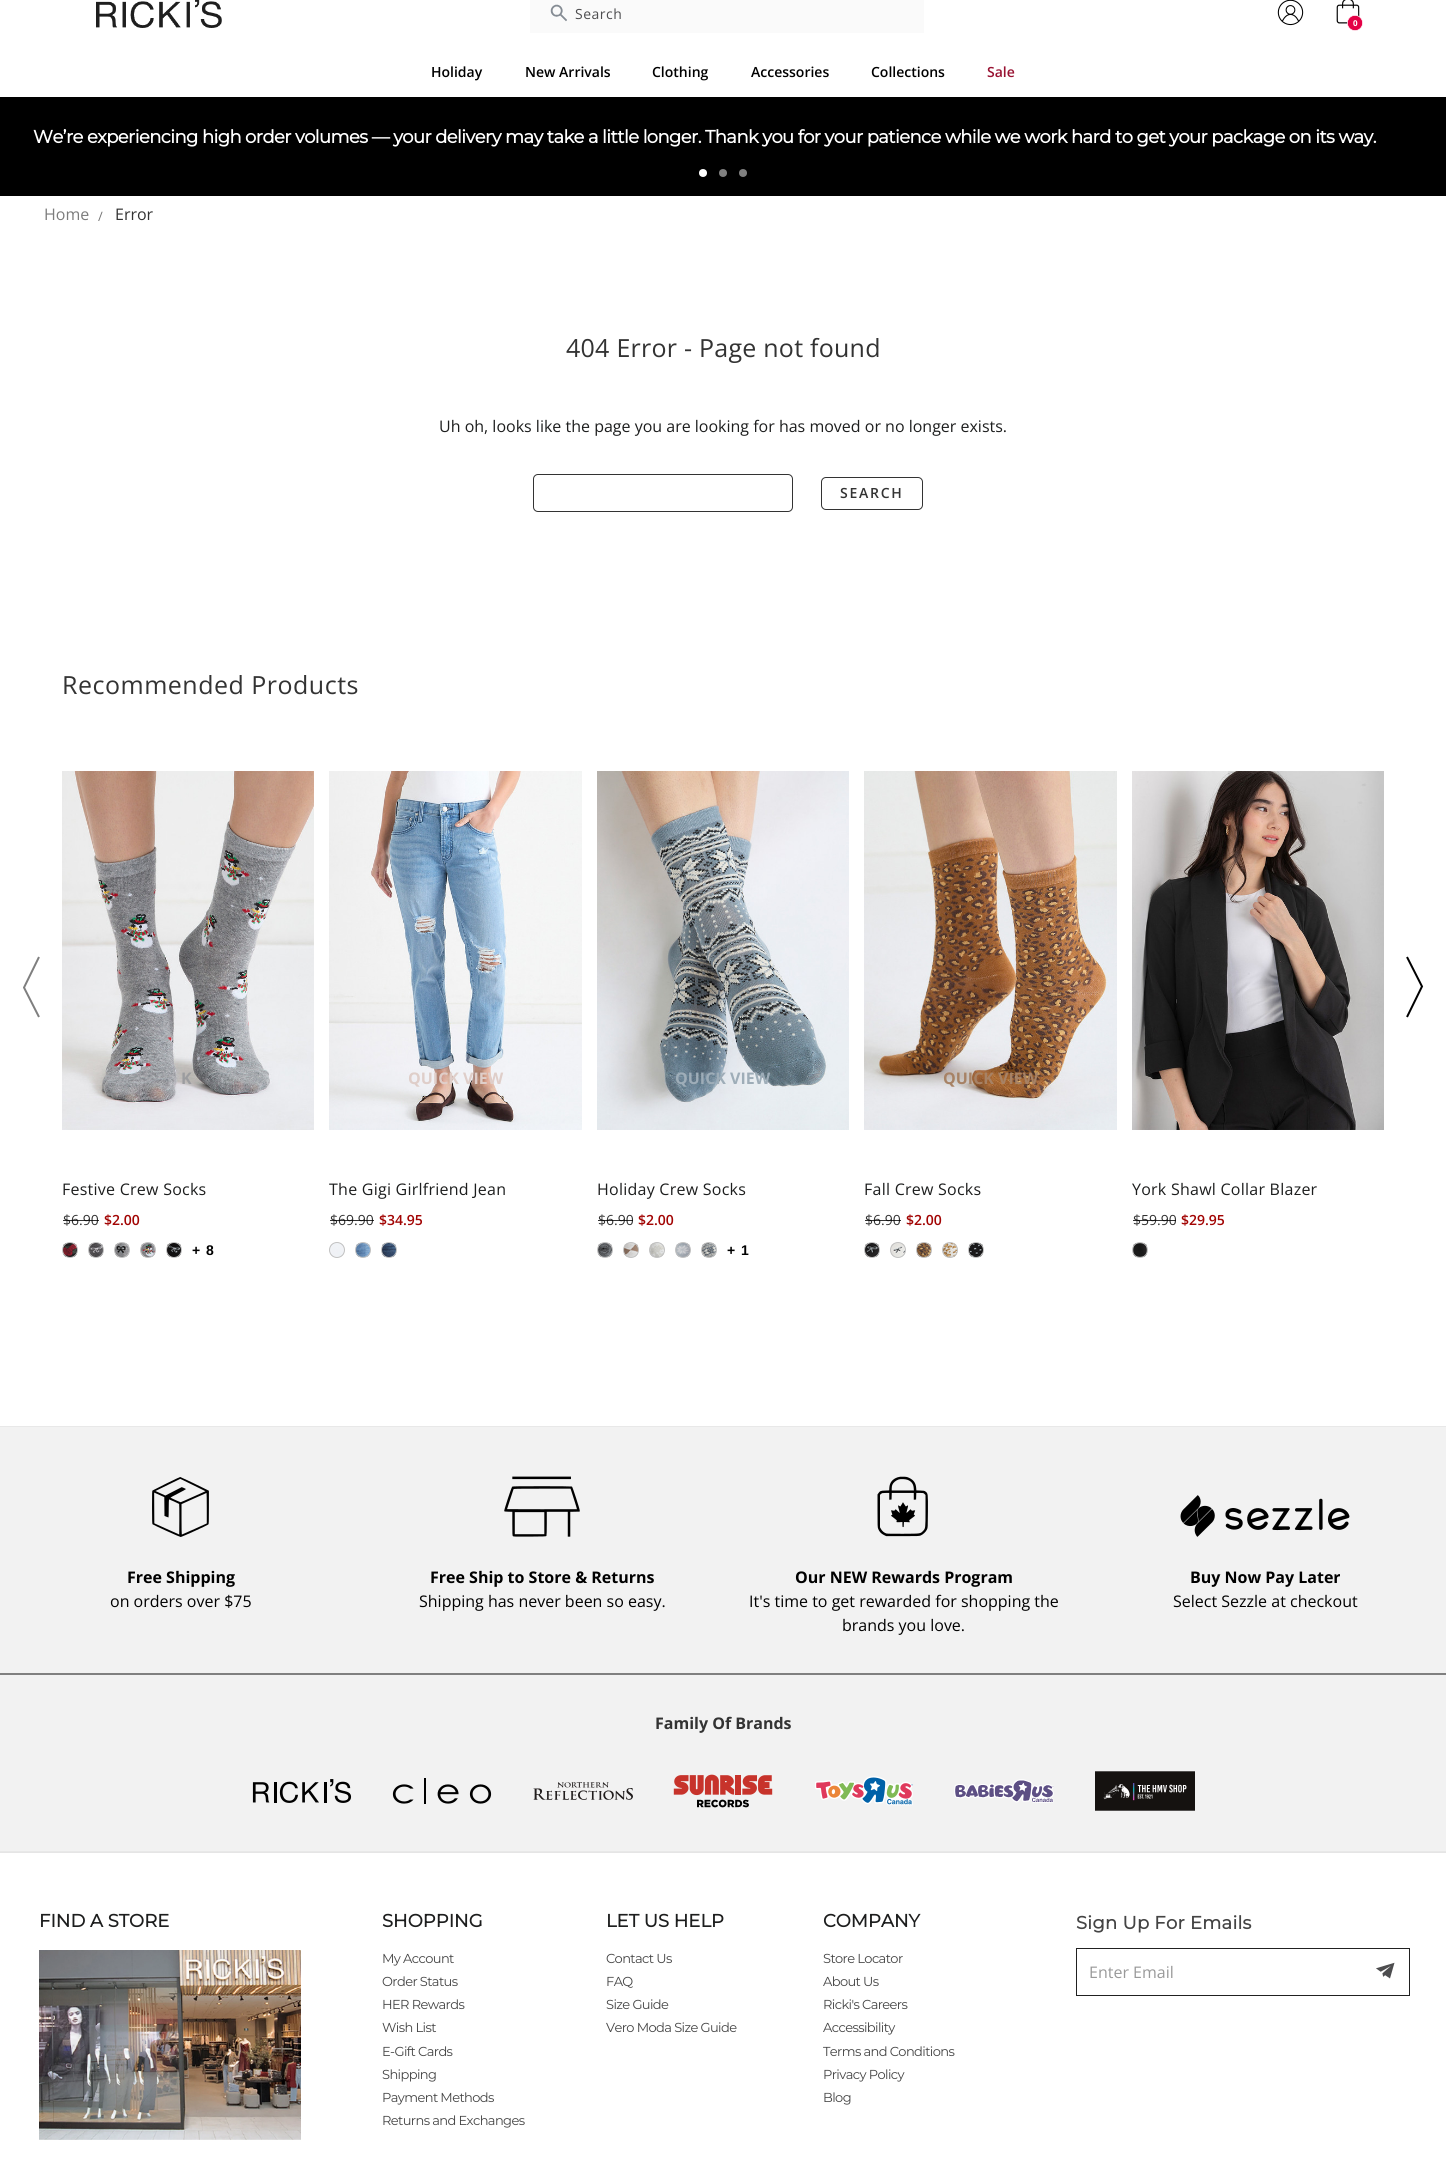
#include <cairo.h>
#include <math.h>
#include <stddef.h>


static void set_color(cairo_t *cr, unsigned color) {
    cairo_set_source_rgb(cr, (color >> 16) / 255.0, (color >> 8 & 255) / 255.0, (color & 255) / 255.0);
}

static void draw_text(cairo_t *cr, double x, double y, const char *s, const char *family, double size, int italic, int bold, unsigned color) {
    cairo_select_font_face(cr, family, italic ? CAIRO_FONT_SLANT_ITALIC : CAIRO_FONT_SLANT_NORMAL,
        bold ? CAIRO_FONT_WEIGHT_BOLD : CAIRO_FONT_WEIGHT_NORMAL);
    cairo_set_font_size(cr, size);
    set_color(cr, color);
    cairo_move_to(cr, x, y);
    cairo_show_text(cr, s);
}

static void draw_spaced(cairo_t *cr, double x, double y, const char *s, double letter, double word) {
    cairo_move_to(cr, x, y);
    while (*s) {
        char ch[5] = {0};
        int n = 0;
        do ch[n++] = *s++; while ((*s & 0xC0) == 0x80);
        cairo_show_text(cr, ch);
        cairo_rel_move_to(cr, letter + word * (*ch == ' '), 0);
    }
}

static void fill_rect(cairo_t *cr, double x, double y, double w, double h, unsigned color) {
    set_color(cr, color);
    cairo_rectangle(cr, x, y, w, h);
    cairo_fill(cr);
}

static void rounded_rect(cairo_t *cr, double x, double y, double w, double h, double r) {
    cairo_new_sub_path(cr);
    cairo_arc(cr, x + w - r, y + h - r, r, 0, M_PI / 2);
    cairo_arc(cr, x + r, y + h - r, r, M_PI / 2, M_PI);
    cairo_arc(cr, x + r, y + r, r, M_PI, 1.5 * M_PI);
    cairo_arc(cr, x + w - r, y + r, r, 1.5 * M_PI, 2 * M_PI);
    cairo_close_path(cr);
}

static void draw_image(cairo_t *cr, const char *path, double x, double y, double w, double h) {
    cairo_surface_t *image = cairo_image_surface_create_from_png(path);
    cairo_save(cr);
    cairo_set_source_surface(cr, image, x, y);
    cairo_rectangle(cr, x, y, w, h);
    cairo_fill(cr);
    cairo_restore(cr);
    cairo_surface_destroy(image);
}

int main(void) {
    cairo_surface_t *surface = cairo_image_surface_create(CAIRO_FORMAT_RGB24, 1446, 2172);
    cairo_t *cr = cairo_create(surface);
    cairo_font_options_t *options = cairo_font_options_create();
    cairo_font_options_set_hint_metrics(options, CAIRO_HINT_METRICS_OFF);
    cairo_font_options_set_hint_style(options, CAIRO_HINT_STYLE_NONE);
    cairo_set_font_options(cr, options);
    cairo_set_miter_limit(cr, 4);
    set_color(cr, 0xFFFFFF);
    cairo_paint(cr);
    draw_image(cr, "assets/img1.png", 96, 0, 126, 28);
    fill_rect(cr, 530, 0, 394, 33, 0xFAFAFA);
    draw_image(cr, "assets/img2.png", 550, 4, 17, 18);
    cairo_select_font_face(cr, "Open Sans", CAIRO_FONT_SLANT_NORMAL, CAIRO_FONT_WEIGHT_NORMAL);
    cairo_set_font_size(cr, 14);
    set_color(cr, 0x4D4D4F);
    draw_spaced(cr, 575, 19, "Search", 0.5, 0);
    draw_image(cr, "assets/img3.png", 1277, 0, 27, 26);
    draw_image(cr, "assets/img4.png", 1336, 0, 24, 24);
    set_color(cr, 0xE40046);
    cairo_arc(cr, 1355, 23, 7.65, 0, 2 * M_PI);
    cairo_fill_preserve(cr);
    set_color(cr, 0xFFFFFF);
    cairo_set_line_width(cr, 0.7);
    cairo_stroke(cr);
    draw_text(cr, 1353, 26, "0", "Open Sans", 8, 0, 1, 0xFFFFFF);
    draw_text(cr, 431, 77, "Holiday", "Open Sans SemiBold", 14, 0, 0, 0x000000);
    draw_text(cr, 525, 77, "New Arrivals", "Open Sans SemiBold", 14, 0, 0, 0x000000);
    draw_text(cr, 652, 77, "Clothing", "Open Sans SemiBold", 14, 0, 0, 0x000000);
    draw_text(cr, 751, 77, "Accessories", "Open Sans SemiBold", 14, 0, 0, 0x000000);
    draw_text(cr, 871, 77, "Collections", "Open Sans SemiBold", 14, 0, 0, 0x000000);
    draw_text(cr, 987, 77, "Sale", "Open Sans SemiBold", 14, 0, 0, 0x981232);
    fill_rect(cr, 0, 97, 1446, 99, 0x000000);
    cairo_select_font_face(cr, "Montserrat", CAIRO_FONT_SLANT_NORMAL, CAIRO_FONT_WEIGHT_BOLD);
    cairo_set_font_size(cr, 18);
    set_color(cr, 0xFFFFFF);
    draw_spaced(cr, 33, 143, "We’re experiencing high order volumes — your delivery may take a little longer. Thank you for your patience while we work hard to get your package on its way.", -0.6, 0);
    cairo_new_path(cr);
    cairo_arc(cr, 703, 173, 4, 0, 2 * M_PI);
    cairo_fill(cr);
    set_color(cr, 0x808080);
    cairo_arc(cr, 723, 173, 4, 0, 2 * M_PI);
    cairo_fill(cr);
    cairo_arc(cr, 743, 173, 4, 0, 2 * M_PI);
    cairo_fill(cr);
    draw_text(cr, 44, 220, "Home", "Open Sans", 16, 0, 0, 0x7C7C7C);
    draw_text(cr, 98, 221, "/", "Open Sans", 13, 0, 0, 0x757575);
    draw_text(cr, 115, 220, "Error", "Open Sans", 16, 0, 0, 0x333333);
    cairo_set_font_size(cr, 25);
    draw_spaced(cr, 566, 357, "404 Error - Page not found", 0.25, 0);
    draw_text(cr, 439, 432, "Uh oh, looks like the page you are looking for has moved or no longer exists.", "Open Sans", 16, 0, 0, 0x1D1E1E);
    rounded_rect(cr, 533.5, 474.5, 259, 37, 4.5);
    set_color(cr, 0x333333);
    cairo_set_line_width(cr, 1);
    cairo_stroke(cr);
    rounded_rect(cr, 821.5, 477.5, 101, 32, 4.5);
    cairo_stroke(cr);
    cairo_select_font_face(cr, "Open Sans SemiBold", CAIRO_FONT_SLANT_NORMAL, CAIRO_FONT_WEIGHT_NORMAL);
    cairo_set_font_size(cr, 14);
    draw_spaced(cr, 840, 498, "SEARCH", 1.75, 0);
    cairo_select_font_face(cr, "Open Sans", CAIRO_FONT_SLANT_NORMAL, CAIRO_FONT_WEIGHT_NORMAL);
    cairo_set_font_size(cr, 25);
    draw_spaced(cr, 62, 694, "Recommended Products", 0.5, 0);
    draw_image(cr, "assets/img5.png", 23, 956, 17, 62);
    draw_image(cr, "assets/img6.png", 1406, 956, 18, 62);
    draw_image(cr, "assets/img7.png", 62, 771, 252, 359);
    draw_text(cr, 181, 1084, "K", "Open Sans", 16, 0, 1, 0x9B9C9F);
    cairo_select_font_face(cr, "Open Sans", CAIRO_FONT_SLANT_NORMAL, CAIRO_FONT_WEIGHT_NORMAL);
    set_color(cr, 0x1D1E1E);
    draw_spaced(cr, 62, 1195, "Festive Crew Socks", 0.25, 0);
    draw_text(cr, 63, 1225, "$6.90", "Open Sans", 14, 0, 0, 0x333333);
    cairo_set_source_rgba(cr, 0, 0, 0, 0.8);
    cairo_rectangle(cr, 63, 1220, 36, 1);
    cairo_fill(cr);
    draw_text(cr, 104, 1225, "$2.00", "Open Sans SemiBold", 14, 0, 0, 0xA20403);
    draw_image(cr, "assets/img8.png", 63, 1243, 14, 14);
    cairo_arc(cr, 70, 1250, 7.5, 0, 2 * M_PI);
    set_color(cr, 0xC1C1C1);
    cairo_stroke(cr);
    draw_image(cr, "assets/img9.png", 89, 1243, 14, 14);
    cairo_arc(cr, 96, 1250, 7.5, 0, 2 * M_PI);
    cairo_stroke(cr);
    draw_image(cr, "assets/img10.png", 115, 1243, 14, 14);
    cairo_arc(cr, 122, 1250, 7.5, 0, 2 * M_PI);
    cairo_stroke(cr);
    draw_image(cr, "assets/img11.png", 141, 1243, 14, 14);
    cairo_arc(cr, 148, 1250, 7.5, 0, 2 * M_PI);
    cairo_stroke(cr);
    draw_image(cr, "assets/img12.png", 167, 1243, 14, 14);
    cairo_arc(cr, 174, 1250, 7.5, 0, 2 * M_PI);
    cairo_stroke(cr);
    cairo_select_font_face(cr, "Liberation Sans", CAIRO_FONT_SLANT_NORMAL, CAIRO_FONT_WEIGHT_BOLD);
    set_color(cr, 0x000000);
    draw_spaced(cr, 192, 1255, "+ 8", 1, 0);
    draw_image(cr, "assets/img13.png", 329, 771, 253, 359);
    draw_text(cr, 408, 1084, "QUICK VIEW", "Open Sans", 16, 0, 1, 0xDFCEC9);
    cairo_select_font_face(cr, "Open Sans", CAIRO_FONT_SLANT_NORMAL, CAIRO_FONT_WEIGHT_NORMAL);
    set_color(cr, 0x1D1E1E);
    draw_spaced(cr, 329, 1195, "The Gigi Girlfriend Jean", 0.25, 0);
    draw_text(cr, 330, 1225, "$69.90", "Open Sans", 14, 0, 0, 0x333333);
    cairo_set_source_rgba(cr, 0, 0, 0, 0.8);
    cairo_rectangle(cr, 330, 1220, 44, 1);
    cairo_fill(cr);
    draw_text(cr, 379, 1225, "$34.95", "Open Sans SemiBold", 14, 0, 0, 0xA20403);
    draw_image(cr, "assets/img14.png", 330, 1243, 14, 14);
    cairo_arc(cr, 337, 1250, 7.5, 0, 2 * M_PI);
    set_color(cr, 0xC1C1C1);
    cairo_stroke(cr);
    draw_image(cr, "assets/img15.png", 356, 1243, 14, 14);
    cairo_arc(cr, 363, 1250, 7.5, 0, 2 * M_PI);
    cairo_stroke(cr);
    draw_image(cr, "assets/img16.png", 382, 1243, 14, 14);
    cairo_arc(cr, 389, 1250, 7.5, 0, 2 * M_PI);
    cairo_stroke(cr);
    draw_image(cr, "assets/img17.png", 597, 771, 252, 359);
    draw_text(cr, 675, 1084, "QUICK VIEW", "Open Sans", 16, 0, 1, 0x9EADB8);
    cairo_select_font_face(cr, "Open Sans", CAIRO_FONT_SLANT_NORMAL, CAIRO_FONT_WEIGHT_NORMAL);
    set_color(cr, 0x1D1E1E);
    draw_spaced(cr, 597, 1195, "Holiday Crew Socks", 0.25, 0);
    draw_text(cr, 598, 1225, "$6.90", "Open Sans", 14, 0, 0, 0x333333);
    cairo_set_source_rgba(cr, 0, 0, 0, 0.8);
    cairo_rectangle(cr, 598, 1220, 35, 1);
    cairo_fill(cr);
    draw_text(cr, 638, 1225, "$2.00", "Open Sans SemiBold", 14, 0, 0, 0xA20403);
    draw_image(cr, "assets/img18.png", 598, 1243, 14, 14);
    cairo_arc(cr, 605, 1250, 7.5, 0, 2 * M_PI);
    set_color(cr, 0xC1C1C1);
    cairo_stroke(cr);
    draw_image(cr, "assets/img19.png", 624, 1243, 14, 14);
    cairo_arc(cr, 631, 1250, 7.5, 0, 2 * M_PI);
    cairo_stroke(cr);
    draw_image(cr, "assets/img20.png", 650, 1243, 14, 14);
    cairo_arc(cr, 657, 1250, 7.5, 0, 2 * M_PI);
    cairo_stroke(cr);
    draw_image(cr, "assets/img21.png", 676, 1243, 14, 14);
    cairo_arc(cr, 683, 1250, 7.5, 0, 2 * M_PI);
    cairo_stroke(cr);
    draw_image(cr, "assets/img22.png", 702, 1243, 14, 14);
    cairo_arc(cr, 709, 1250, 7.5, 0, 2 * M_PI);
    cairo_stroke(cr);
    cairo_select_font_face(cr, "Liberation Sans", CAIRO_FONT_SLANT_NORMAL, CAIRO_FONT_WEIGHT_BOLD);
    set_color(cr, 0x000000);
    draw_spaced(cr, 727, 1255, "+ 1", 1, 0);
    draw_image(cr, "assets/img23.png", 864, 771, 253, 359);
    draw_text(cr, 943, 1084, "QUICK VIEW", "Open Sans", 16, 0, 1, 0xA78265);
    cairo_select_font_face(cr, "Open Sans", CAIRO_FONT_SLANT_NORMAL, CAIRO_FONT_WEIGHT_NORMAL);
    set_color(cr, 0x1D1E1E);
    draw_spaced(cr, 864, 1195, "Fall Crew Socks", 0.25, 0);
    draw_text(cr, 865, 1225, "$6.90", "Open Sans", 14, 0, 0, 0x333333);
    cairo_set_source_rgba(cr, 0, 0, 0, 0.8);
    cairo_rectangle(cr, 865, 1220, 36, 1);
    cairo_fill(cr);
    draw_text(cr, 906, 1225, "$2.00", "Open Sans SemiBold", 14, 0, 0, 0xA20403);
    draw_image(cr, "assets/img24.png", 865, 1243, 14, 14);
    cairo_arc(cr, 872, 1250, 7.5, 0, 2 * M_PI);
    set_color(cr, 0xC1C1C1);
    cairo_stroke(cr);
    draw_image(cr, "assets/img25.png", 891, 1243, 14, 14);
    cairo_arc(cr, 898, 1250, 7.5, 0, 2 * M_PI);
    cairo_stroke(cr);
    draw_image(cr, "assets/img26.png", 917, 1243, 14, 14);
    cairo_arc(cr, 924, 1250, 7.5, 0, 2 * M_PI);
    cairo_stroke(cr);
    draw_image(cr, "assets/img27.png", 943, 1243, 14, 14);
    cairo_arc(cr, 950, 1250, 7.5, 0, 2 * M_PI);
    cairo_stroke(cr);
    draw_image(cr, "assets/img28.png", 969, 1243, 14, 14);
    cairo_arc(cr, 976, 1250, 7.5, 0, 2 * M_PI);
    cairo_stroke(cr);
    draw_image(cr, "assets/img29.png", 1132, 771, 252, 359);
    cairo_select_font_face(cr, "Open Sans", CAIRO_FONT_SLANT_NORMAL, CAIRO_FONT_WEIGHT_NORMAL);
    cairo_set_font_size(cr, 16);
    set_color(cr, 0x1D1E1E);
    draw_spaced(cr, 1132, 1195, "York Shawl Collar Blazer", 0.25, 0);
    draw_text(cr, 1133, 1225, "$59.90", "Open Sans", 14, 0, 0, 0x333333);
    cairo_set_source_rgba(cr, 0, 0, 0, 0.8);
    cairo_rectangle(cr, 1133, 1220, 43, 1);
    cairo_fill(cr);
    draw_text(cr, 1181, 1225, "$29.95", "Open Sans SemiBold", 14, 0, 0, 0xA20403);
    draw_image(cr, "assets/img30.png", 1133, 1243, 14, 14);
    cairo_arc(cr, 1140, 1250, 7.5, 0, 2 * M_PI);
    set_color(cr, 0xC1C1C1);
    cairo_stroke(cr);
    fill_rect(cr, 0, 1427, 1446, 424, 0xF2F2F2);
    fill_rect(cr, 0, 1426, 1446, 1, 0xE8E8E8);
    fill_rect(cr, 0, 1851, 1446, 1, 0xE8E8E8);
    draw_image(cr, "assets/img31.png", 152, 1477, 57, 60);
    draw_text(cr, 127, 1583, "Free Shipping", "Open Sans", 16, 0, 1, 0x000000);
    draw_text(cr, 110, 1607, "on orders over $75", "Open Sans", 16, 0, 0, 0x000000);
    draw_image(cr, "assets/img32.png", 504, 1476, 76, 61);
    draw_text(cr, 430, 1583, "Free Ship to Store & Returns", "Open Sans", 16, 0, 1, 0x000000);
    draw_text(cr, 419, 1607, "Shipping has never been so easy.", "Open Sans", 16, 0, 0, 0x000000);
    draw_image(cr, "assets/img33.png", 877, 1476, 51, 61);
    draw_text(cr, 795, 1583, "Our NEW Rewards Program", "Open Sans", 16, 0, 1, 0x000000);
    draw_text(cr, 749, 1607, "It's time to get rewarded for shopping the", "Open Sans", 16, 0, 0, 0x000000);
    draw_text(cr, 842, 1631, "brands you love.", "Open Sans", 16, 0, 0, 0x000000);
    draw_image(cr, "assets/img34.png", 1180, 1495, 170, 42);
    draw_text(cr, 1190, 1583, "Buy Now Pay Later", "Open Sans", 16, 0, 1, 0x000000);
    draw_text(cr, 1173, 1607, "Select Sezzle at checkout", "Open Sans", 16, 0, 0, 0x000000);
    fill_rect(cr, 0, 1673, 1446, 2, 0x808080);
    draw_text(cr, 655, 1729, "Family Of Brands", "Open Sans", 16, 0, 1, 0x333333);
    draw_image(cr, "assets/img35.png", 252, 1779, 100, 24);
    draw_image(cr, "assets/img36.png", 392, 1778, 100, 26);
    draw_image(cr, "assets/img37.png", 533, 1782, 100, 18);
    draw_image(cr, "assets/img38.png", 673, 1774, 100, 34);
    draw_image(cr, "assets/img39.png", 815, 1776, 98, 30);
    draw_image(cr, "assets/img40.png", 954, 1779, 100, 24);
    draw_image(cr, "assets/img41.png", 1095, 1771, 100, 40);
    fill_rect(cr, 0, 1852, 1446, 1, 0xE5E5E5);
    draw_text(cr, 39, 1927, "FIND A STORE", "Montserrat", 18, 0, 1, 0x1D1E1E);
    draw_image(cr, "assets/img42.png", 39, 1950, 262, 190);
    draw_text(cr, 382, 1927, "SHOPPING", "Montserrat", 18, 0, 1, 0x1D1E1E);
    cairo_select_font_face(cr, "Montserrat Thin", CAIRO_FONT_SLANT_NORMAL, CAIRO_FONT_WEIGHT_NORMAL);
    cairo_set_font_size(cr, 13);
    set_color(cr, 0x444444);
    draw_spaced(cr, 382, 1963, "My Account", -0.6, 0);
    draw_spaced(cr, 382, 1986, "Order Status", -0.6, 0);
    draw_spaced(cr, 382, 2009, "HER Rewards", -0.6, 0);
    draw_spaced(cr, 382, 2032, "Wish List", -0.6, 0);
    draw_spaced(cr, 382, 2056, "E-Gift Cards", -0.6, 0);
    draw_spaced(cr, 382, 2079, "Shipping", -0.6, 0);
    draw_spaced(cr, 382, 2102, "Payment Methods", -0.6, 0);
    draw_spaced(cr, 382, 2125, "Returns and Exchanges", -0.6, 0);
    draw_text(cr, 606, 1927, "LET US HELP", "Montserrat", 18, 0, 1, 0x1D1E1E);
    cairo_select_font_face(cr, "Montserrat Thin", CAIRO_FONT_SLANT_NORMAL, CAIRO_FONT_WEIGHT_NORMAL);
    cairo_set_font_size(cr, 13);
    set_color(cr, 0x444444);
    draw_spaced(cr, 606, 1963, "Contact Us", -0.6, 0);
    draw_spaced(cr, 606, 1986, "FAQ", -0.6, 0);
    draw_spaced(cr, 606, 2009, "Size Guide", -0.6, 0);
    draw_spaced(cr, 606, 2032, "Vero Moda Size Guide", -0.6, 0);
    draw_text(cr, 823, 1927, "COMPANY", "Montserrat", 18, 0, 1, 0x1D1E1E);
    cairo_select_font_face(cr, "Montserrat Thin", CAIRO_FONT_SLANT_NORMAL, CAIRO_FONT_WEIGHT_NORMAL);
    cairo_set_font_size(cr, 13);
    set_color(cr, 0x444444);
    draw_spaced(cr, 823, 1963, "Store Locator", -0.6, 0);
    draw_spaced(cr, 823, 1986, "About Us", -0.6, 0);
    draw_spaced(cr, 823, 2009, "Ricki's Careers", -0.6, 0);
    draw_spaced(cr, 823, 2032, "Accessibility", -0.6, 0);
    draw_spaced(cr, 823, 2056, "Terms and Conditions", -0.6, 0);
    draw_spaced(cr, 823, 2079, "Privacy Policy", -0.6, 0);
    draw_spaced(cr, 823, 2102, "Blog", -0.6, 0);
    cairo_select_font_face(cr, "Montserrat", CAIRO_FONT_SLANT_NORMAL, CAIRO_FONT_WEIGHT_BOLD);
    cairo_set_font_size(cr, 18);
    draw_spaced(cr, 1076, 1929, "Sign Up For Emails", 0.25, 0);
    cairo_rectangle(cr, 1076.5, 1948.5, 333, 47);
    set_color(cr, 0x212121);
    cairo_stroke(cr);
    draw_text(cr, 1089, 1978, "Enter Email", "Open Sans", 16, 0, 0, 0x999999);
    draw_image(cr, "assets/img43.png", 1376, 1962, 19, 17);
    cairo_surface_write_to_png(surface, "output.png");
    cairo_font_options_destroy(options);
    cairo_destroy(cr);
    cairo_surface_destroy(surface);
    return 0;
}
